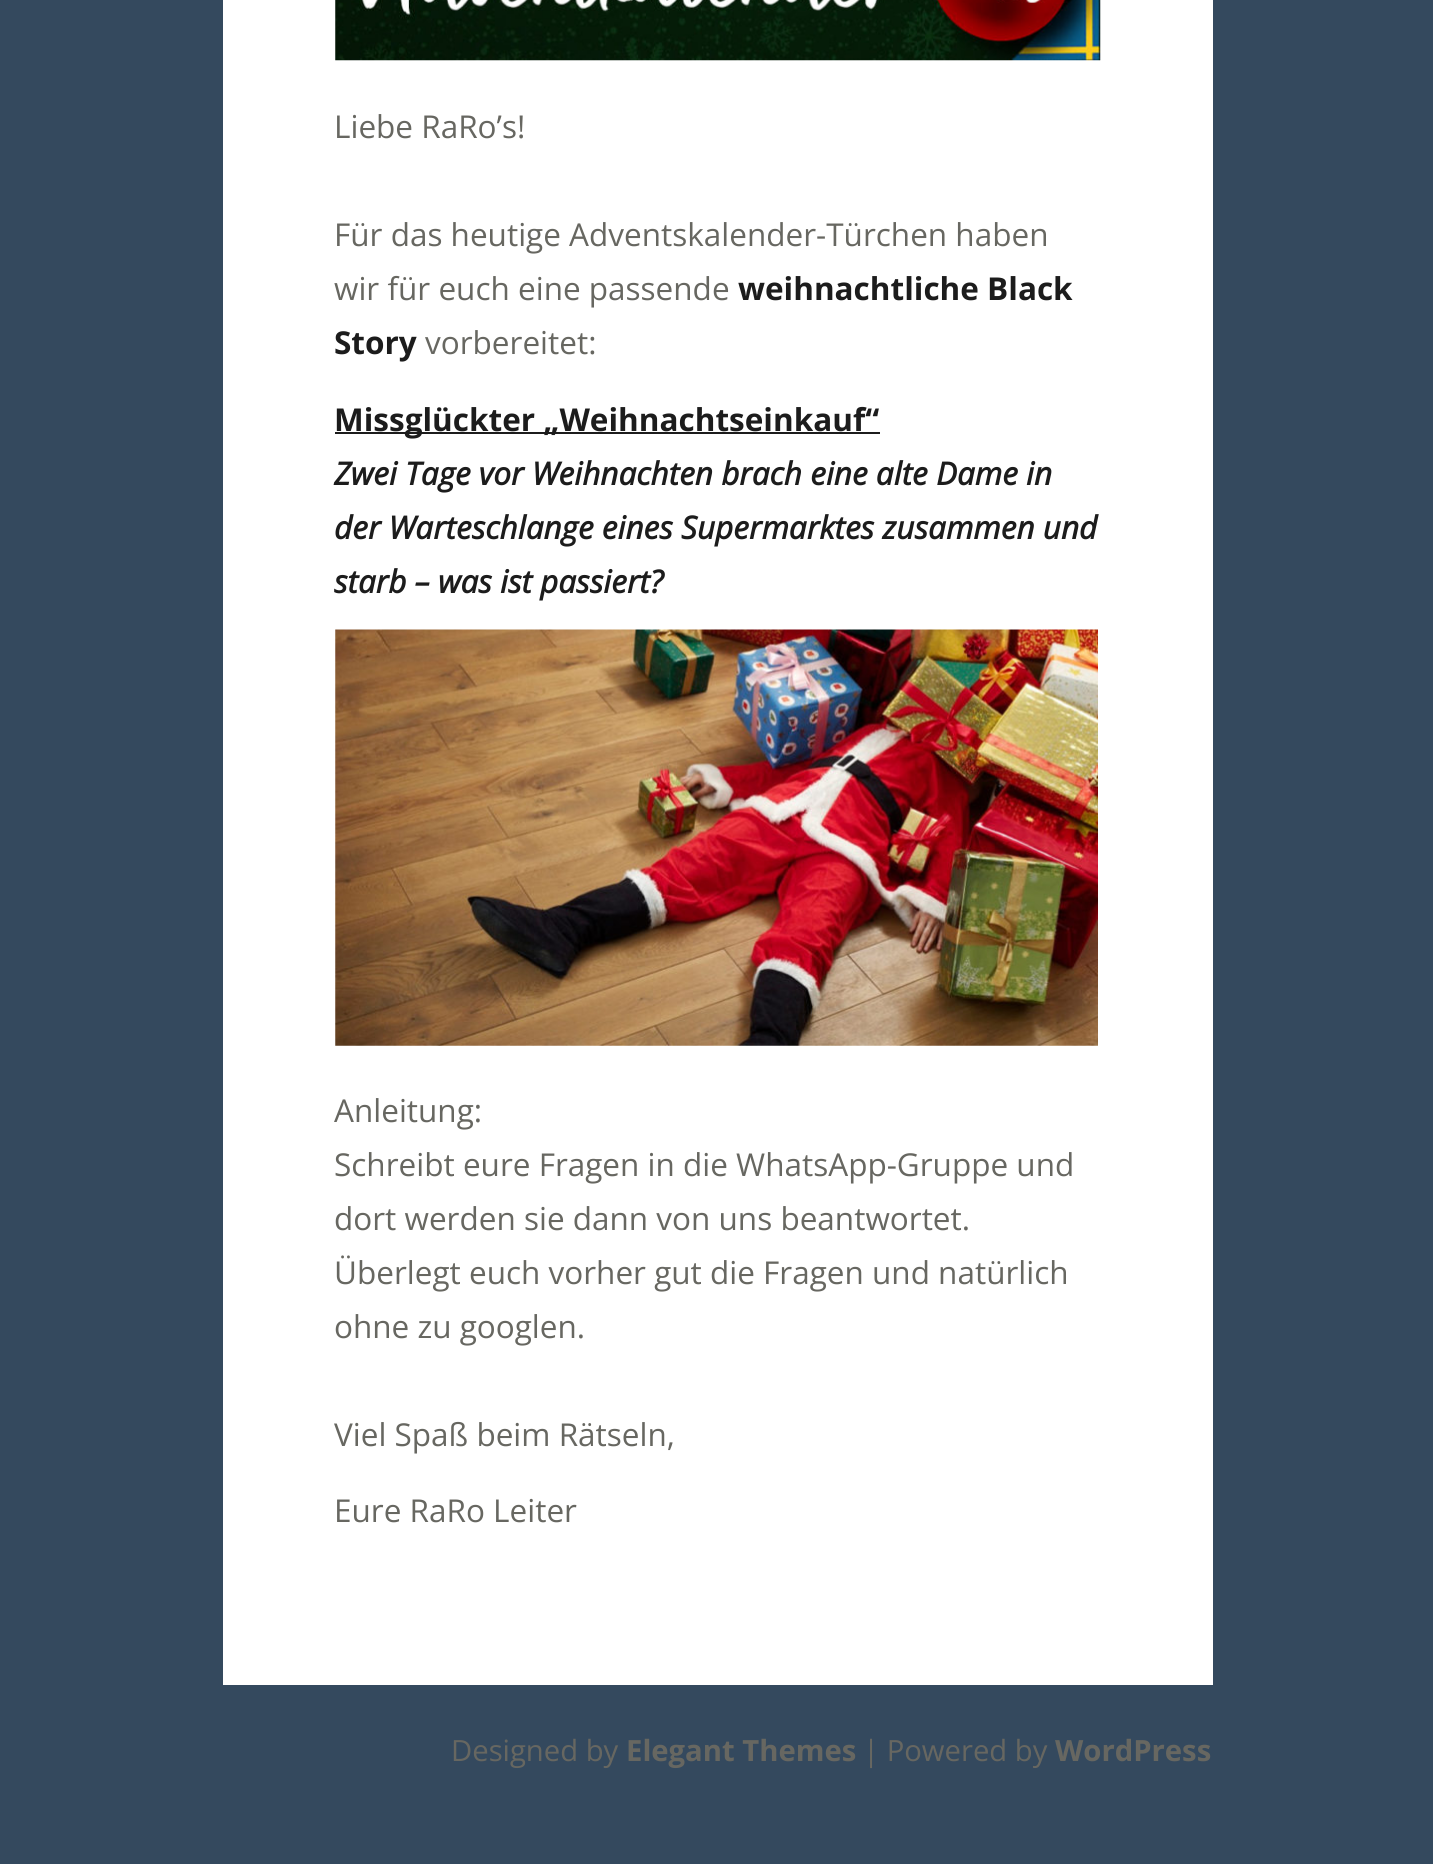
#include <cairo.h>
#include <math.h>
#include <stddef.h>


static void set_color(cairo_t *cr, unsigned color) {
    cairo_set_source_rgb(cr, (color >> 16) / 255.0, (color >> 8 & 255) / 255.0, (color & 255) / 255.0);
}

static void draw_text(cairo_t *cr, double x, double y, const char *s, const char *family, double size, int italic, int bold, unsigned color) {
    cairo_select_font_face(cr, family, italic ? CAIRO_FONT_SLANT_ITALIC : CAIRO_FONT_SLANT_NORMAL,
        bold ? CAIRO_FONT_WEIGHT_BOLD : CAIRO_FONT_WEIGHT_NORMAL);
    cairo_set_font_size(cr, size);
    set_color(cr, color);
    cairo_move_to(cr, x, y);
    cairo_show_text(cr, s);
}

static void fill_rect(cairo_t *cr, double x, double y, double w, double h, unsigned color) {
    set_color(cr, color);
    cairo_rectangle(cr, x, y, w, h);
    cairo_fill(cr);
}

static void draw_image(cairo_t *cr, const char *path, double x, double y, double w, double h) {
    cairo_surface_t *image = cairo_image_surface_create_from_png(path);
    cairo_save(cr);
    cairo_set_source_surface(cr, image, x, y);
    cairo_rectangle(cr, x, y, w, h);
    cairo_fill(cr);
    cairo_restore(cr);
    cairo_surface_destroy(image);
}

int main(void) {
    cairo_surface_t *surface = cairo_image_surface_create(CAIRO_FORMAT_RGB24, 1433, 1864);
    cairo_t *cr = cairo_create(surface);
    cairo_font_options_t *options = cairo_font_options_create();
    cairo_font_options_set_hint_metrics(options, CAIRO_HINT_METRICS_OFF);
    cairo_font_options_set_hint_style(options, CAIRO_HINT_STYLE_NONE);
    cairo_set_font_options(cr, options);
    cairo_set_miter_limit(cr, 4);
    set_color(cr, 0x34495E);
    cairo_paint(cr);
    fill_rect(cr, 223, 0, 990, 1685, 0xFFFFFF);
    draw_image(cr, "assets/img1.png", 335, 0, 766, 61);
    draw_text(cr, 334, 138, "Liebe RaRo’s!", "Open Sans", 31.5, 0, 0, 0x676761);
    draw_text(cr, 334, 246, "Für das heutige Adventskalender-Türchen haben", "Open Sans", 31.5, 0, 0, 0x676761);
    draw_text(cr, 334, 300, "wir für euch eine passende", "Open Sans", 31.5, 0, 0, 0x676761);
    draw_text(cr, 738, 300, "weihnachtliche Black", "Open Sans", 31.5, 0, 1, 0x1C1C1C);
    draw_text(cr, 334, 354, "Story", "Open Sans", 31.5, 0, 1, 0x1C1C1C);
    draw_text(cr, 425, 354, "vorbereitet:", "Open Sans", 31.5, 0, 0, 0x676761);
    fill_rect(cr, 335, 432, 545, 2, 0x1C1C1C);
    draw_text(cr, 334, 431, "Missglückter „Weihnachtseinkauf“", "Open Sans", 31.5, 0, 1, 0x1C1C1C);
    draw_text(cr, 334, 485, "Zwei Tage vor Weihnachten brach eine alte Dame in", "Open Sans", 31.5, 1, 1, 0x1C1C1C);
    draw_text(cr, 334, 539, "der Warteschlange eines Supermarktes zusammen und", "Open Sans", 31.5, 1, 1, 0x1C1C1C);
    draw_text(cr, 334, 593, "starb – was ist passiert?", "Open Sans", 31.5, 1, 1, 0x1C1C1C);
    draw_image(cr, "assets/img2.png", 335, 629, 763, 417);
    draw_text(cr, 334, 1122, "Anleitung:", "Open Sans", 31.5, 0, 0, 0x676761);
    draw_text(cr, 334, 1176, "Schreibt eure Fragen in die WhatsApp-Gruppe und", "Open Sans", 31.5, 0, 0, 0x676761);
    draw_text(cr, 334, 1230, "dort werden sie dann von uns beantwortet.", "Open Sans", 31.5, 0, 0, 0x676761);
    draw_text(cr, 334, 1284, "Überlegt euch vorher gut die Fragen und natürlich", "Open Sans", 31.5, 0, 0, 0x676761);
    draw_text(cr, 334, 1338, "ohne zu googlen.", "Open Sans", 31.5, 0, 0, 0x676761);
    draw_text(cr, 334, 1446, "Viel Spaß beim Rätseln,", "Open Sans", 31.5, 0, 0, 0x676761);
    draw_text(cr, 334, 1522, "Eure RaRo Leiter", "Open Sans", 31.5, 0, 0, 0x676761);
    draw_text(cr, 451, 1761, "Designed by", "Open Sans", 29.25, 0, 0, 0x676761);
    draw_text(cr, 626, 1761, "Elegant Themes", "Open Sans", 29.25, 0, 1, 0x676761);
    draw_text(cr, 863, 1761, "| Powered by", "Open Sans", 29.25, 0, 0, 0x676761);
    draw_text(cr, 1055, 1761, "WordPress", "Open Sans", 29.25, 0, 1, 0x676761);
    cairo_surface_write_to_png(surface, "output.png");
    cairo_font_options_destroy(options);
    cairo_destroy(cr);
    cairo_surface_destroy(surface);
    return 0;
}
